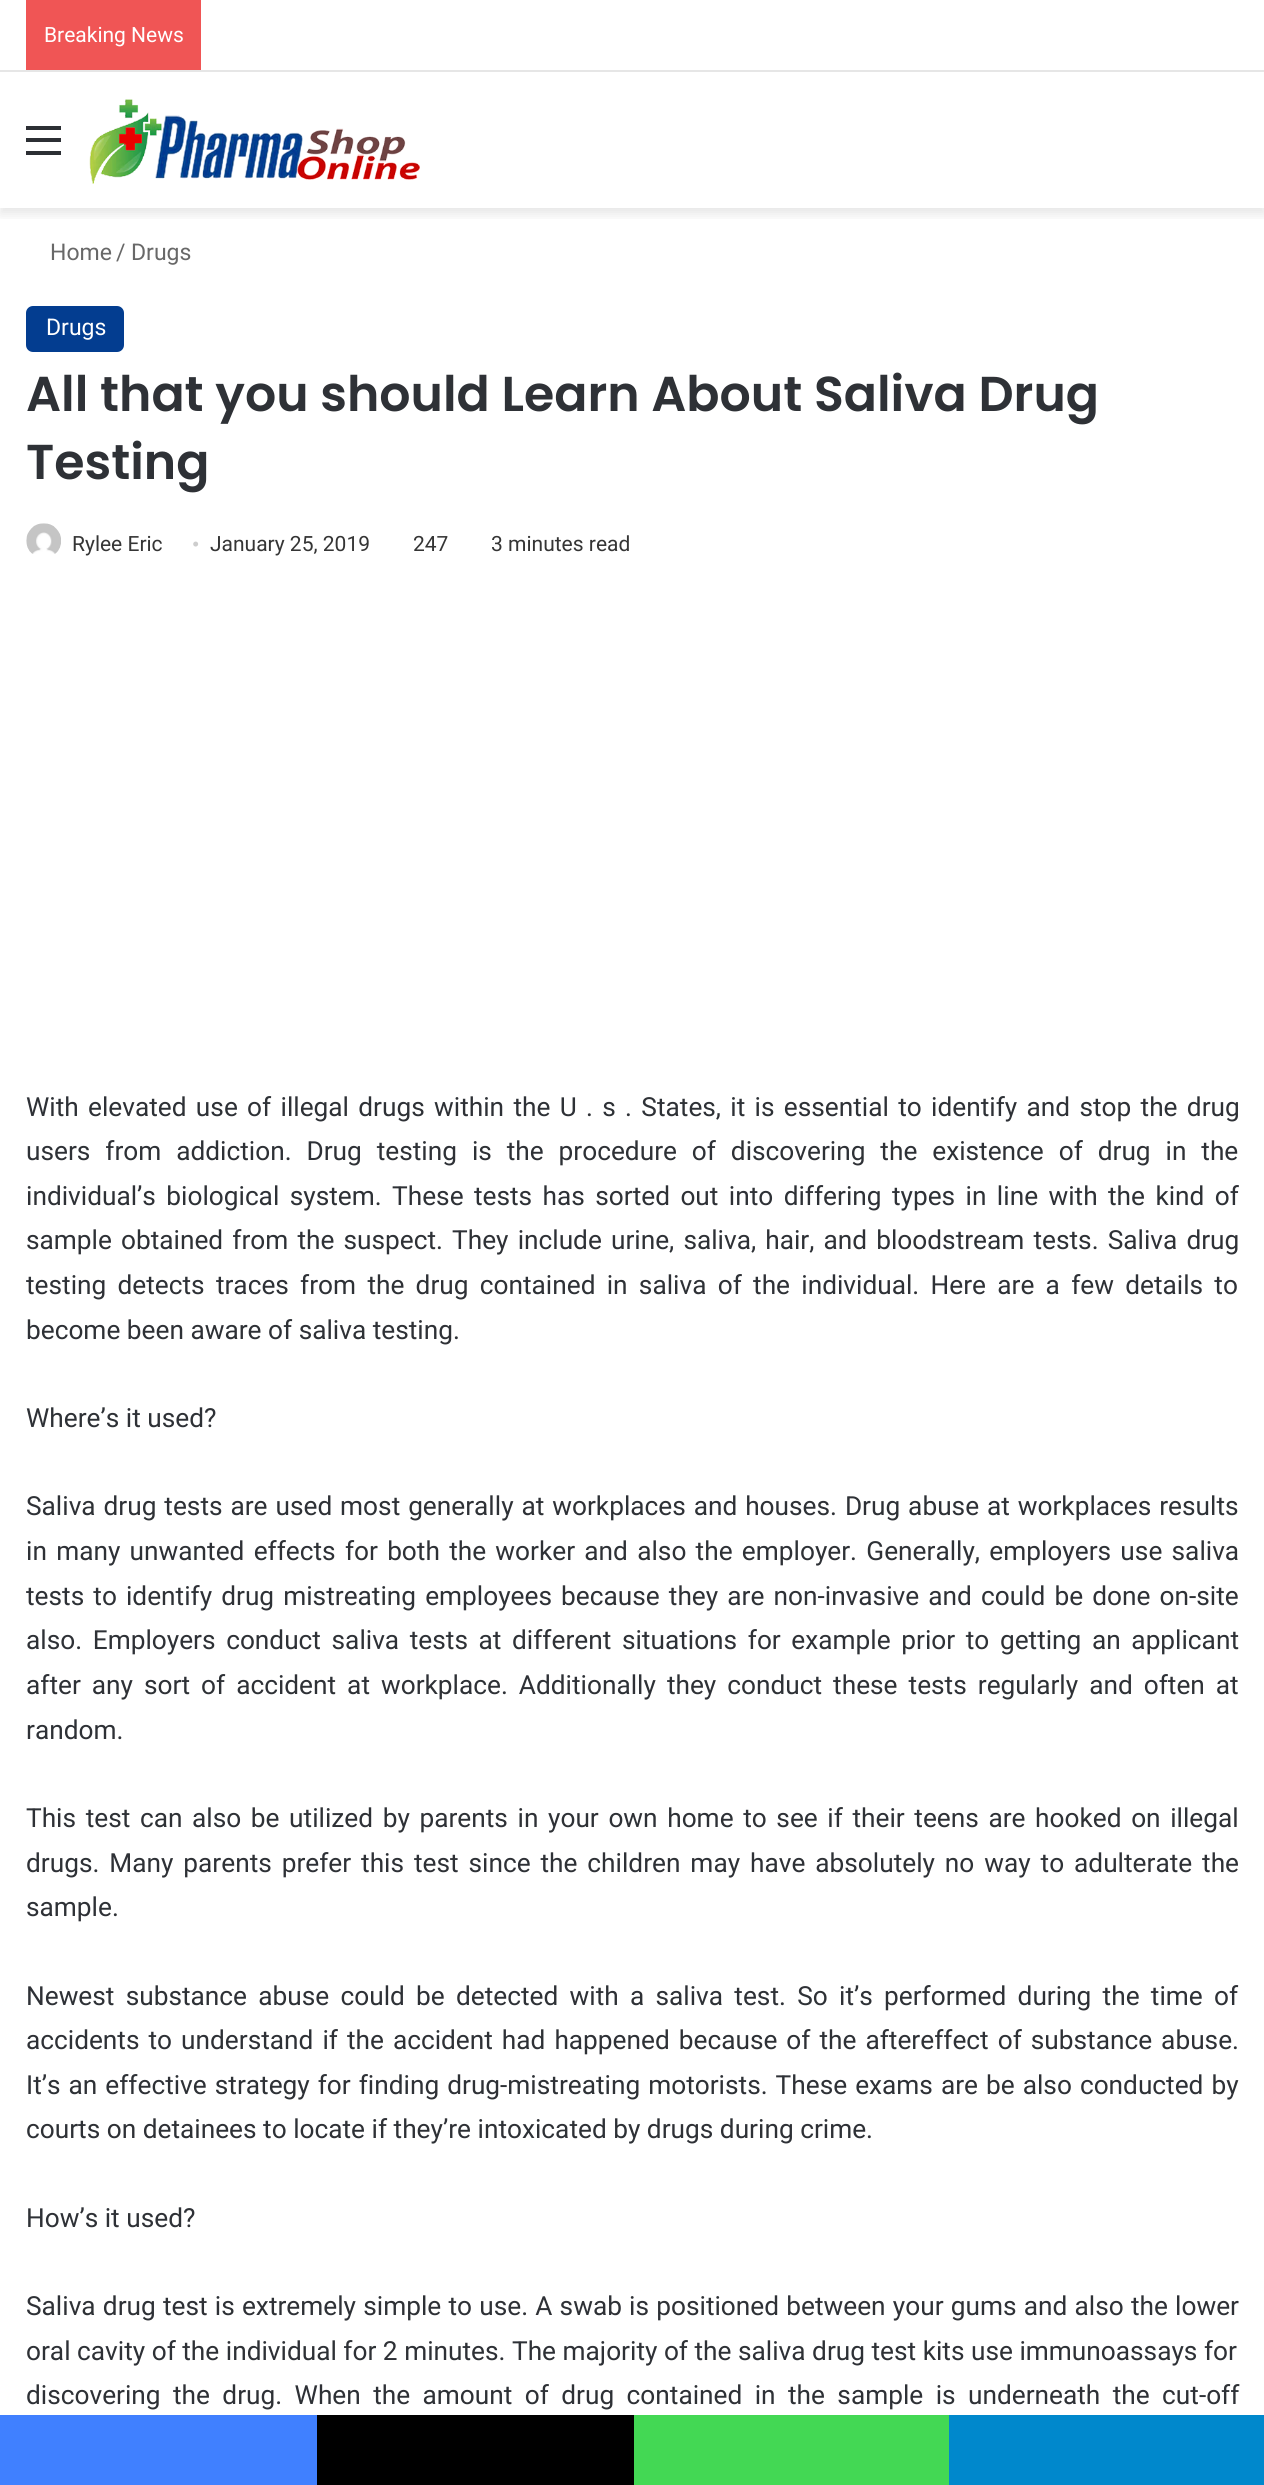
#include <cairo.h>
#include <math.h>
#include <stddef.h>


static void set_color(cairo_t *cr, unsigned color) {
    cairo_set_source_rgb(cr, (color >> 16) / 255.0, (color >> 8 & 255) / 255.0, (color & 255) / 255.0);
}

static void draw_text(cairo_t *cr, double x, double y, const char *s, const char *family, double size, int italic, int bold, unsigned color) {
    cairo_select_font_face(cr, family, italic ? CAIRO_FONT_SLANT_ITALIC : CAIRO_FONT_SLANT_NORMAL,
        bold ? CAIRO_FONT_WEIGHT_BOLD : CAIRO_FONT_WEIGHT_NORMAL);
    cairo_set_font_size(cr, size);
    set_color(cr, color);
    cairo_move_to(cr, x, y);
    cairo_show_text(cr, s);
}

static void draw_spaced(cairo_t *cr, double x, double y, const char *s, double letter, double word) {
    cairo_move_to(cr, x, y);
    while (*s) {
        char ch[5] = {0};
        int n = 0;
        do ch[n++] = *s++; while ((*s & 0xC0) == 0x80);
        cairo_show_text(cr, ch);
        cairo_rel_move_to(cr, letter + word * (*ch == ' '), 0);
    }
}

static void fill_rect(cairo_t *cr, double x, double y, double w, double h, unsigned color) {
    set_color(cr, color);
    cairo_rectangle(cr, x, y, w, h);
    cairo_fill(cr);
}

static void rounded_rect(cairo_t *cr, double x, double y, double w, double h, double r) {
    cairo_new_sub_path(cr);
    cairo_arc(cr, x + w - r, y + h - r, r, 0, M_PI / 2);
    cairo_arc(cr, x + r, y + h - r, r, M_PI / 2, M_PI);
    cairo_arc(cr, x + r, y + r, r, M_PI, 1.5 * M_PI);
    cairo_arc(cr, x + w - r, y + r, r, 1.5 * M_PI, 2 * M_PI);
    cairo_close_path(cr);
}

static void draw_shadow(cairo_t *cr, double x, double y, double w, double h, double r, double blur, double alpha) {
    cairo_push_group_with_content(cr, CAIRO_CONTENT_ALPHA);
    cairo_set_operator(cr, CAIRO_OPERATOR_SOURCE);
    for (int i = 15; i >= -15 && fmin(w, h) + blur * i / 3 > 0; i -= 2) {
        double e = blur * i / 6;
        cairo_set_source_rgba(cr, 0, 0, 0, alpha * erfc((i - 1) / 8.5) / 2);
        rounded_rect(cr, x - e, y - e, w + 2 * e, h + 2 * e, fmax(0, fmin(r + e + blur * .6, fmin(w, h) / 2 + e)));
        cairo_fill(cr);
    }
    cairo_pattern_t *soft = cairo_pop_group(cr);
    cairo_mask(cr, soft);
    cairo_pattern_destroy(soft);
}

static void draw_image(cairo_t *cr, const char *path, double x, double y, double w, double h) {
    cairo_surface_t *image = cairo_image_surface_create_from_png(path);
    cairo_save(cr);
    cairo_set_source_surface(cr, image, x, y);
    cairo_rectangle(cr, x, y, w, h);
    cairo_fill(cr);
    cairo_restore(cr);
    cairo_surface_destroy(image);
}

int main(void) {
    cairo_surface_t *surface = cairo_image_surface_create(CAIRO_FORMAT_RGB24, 1264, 2485);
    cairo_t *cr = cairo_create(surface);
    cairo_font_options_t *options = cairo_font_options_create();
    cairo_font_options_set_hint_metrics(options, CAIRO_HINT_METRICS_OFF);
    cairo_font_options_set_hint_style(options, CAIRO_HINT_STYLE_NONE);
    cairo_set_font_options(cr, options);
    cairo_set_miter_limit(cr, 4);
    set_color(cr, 0xFFFFFF);
    cairo_paint(cr);
    cairo_save(cr);
    cairo_rectangle(cr, 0, 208, 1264, 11);
    cairo_clip(cr);
    set_color(cr, 0x000000);
    draw_shadow(cr, 0, 77, 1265, 137, 0, 6, 0.1);
    cairo_restore(cr);
    fill_rect(cr, 10, 69, 1245, 1, 0xFFFFFF);
    fill_rect(cr, 0, 70, 1264, 2, 0xE6E6E6);
    fill_rect(cr, 26, 0, 175, 70, 0xF05555);
    draw_text(cr, 44, 42, "Breaking News", "Roboto", 21, 0, 0, 0xFFFFFF);
    fill_rect(cr, 26, 138, 35, 4, 0x2C2F34);
    fill_rect(cr, 26, 126, 35, 4, 0x2C2F34);
    fill_rect(cr, 26, 151, 35, 4, 0x2C2F34);
    draw_image(cr, "assets/img1.png", 89, 99, 331, 85);
    draw_text(cr, 50, 260, "Home", "Roboto", 23, 0, 0, 0x686868);
    draw_text(cr, 116, 260, "/", "Roboto", 23, 0, 0, 0x686868);
    draw_text(cr, 131, 260, "Drugs", "Roboto", 23, 0, 0, 0x686868);
    set_color(cr, 0x033D90);
    rounded_rect(cr, 26, 306, 98, 46, 7);
    cairo_fill(cr);
    draw_text(cr, 46, 335, "Drugs", "Roboto", 23, 0, 0, 0xFFFFFF);
    draw_text(cr, 26, 411, "All that you should Learn About Saliva Drug", "Poppins SemiBold", 49, 0, 0, 0x2E3136);
    draw_text(cr, 26, 479, "Testing", "Poppins SemiBold", 49, 0, 0, 0x2E3136);
    draw_image(cr, "assets/img2.png", 26, 523, 35, 31);
    draw_text(cr, 72, 551, "Rylee Eric", "Roboto", 21, 0, 0, 0x353535);
    draw_text(cr, 192, 551, "•", "Liberation Serif", 21, 0, 0, 0xCDCDCD);
    draw_text(cr, 210, 551, "January 25, 2019", "Roboto", 21, 0, 0, 0x353535);
    draw_text(cr, 413, 551, "247", "Roboto", 21, 0, 0, 0x353535);
    draw_text(cr, 491, 551, "3 minutes read", "Roboto", 21, 0, 0, 0x353535);
    cairo_set_font_size(cr, 26.25);
    set_color(cr, 0x2E3136);
    draw_spaced(cr, 26, 1116, "With elevated use of illegal drugs within the U . s . States, it is essential to identify and stop the drug", 0, 2.8);
    draw_spaced(cr, 26, 1160, "users from addiction. Drug testing is the procedure of discovering the existence of drug in the", 0, 8.4);
    draw_spaced(cr, 26, 1205, "individual’s biological system. These tests has sorted out into differing types in line with the kind of", 0, 3.9);
    draw_spaced(cr, 26, 1249, "sample obtained from the suspect. They include urine, saliva, hair, and bloodstream tests. Saliva drug", 0, 2.6);
    draw_spaced(cr, 26, 1294, "testing detects traces from the drug contained in saliva of the individual. Here are a few details to", 0, 4.75);
    draw_text(cr, 26, 1339, "become been aware of saliva testing.", "Roboto", 26.25, 0, 0, 0x2E3136);
    draw_text(cr, 26, 1427, "Where’s it used?", "Roboto", 26.25, 0, 0, 0x2E3136);
    draw_spaced(cr, 26, 1515, "Saliva drug tests are used most generally at workplaces and houses. Drug abuse at workplaces results", 0, 1.4);
    draw_spaced(cr, 26, 1560, "in many unwanted effects for both the worker and also the employer. Generally, employers use saliva", 0, 2.75);
    draw_spaced(cr, 26, 1605, "tests to identify drug mistreating employees because they are non-invasive and could be done on-site", 0, 2.6);
    draw_spaced(cr, 26, 1649, "also. Employers conduct saliva tests at different situations for example prior to getting an applicant", 0, 4.1);
    draw_spaced(cr, 26, 1694, "after any sort of accident at workplace. Additionally they conduct these tests regularly and often at", 0, 4.5);
    draw_text(cr, 26, 1739, "random.", "Roboto", 26.25, 0, 0, 0x2E3136);
    draw_spaced(cr, 26, 1827, "This test can also be utilized by parents in your own home to see if their teens are hooked on illegal", 0, 3.1);
    draw_spaced(cr, 26, 1872, "drugs. Many parents prefer this test since the children may have absolutely no way to adulterate the", 0, 3.4);
    draw_text(cr, 26, 1916, "sample.", "Roboto", 26.25, 0, 0, 0x2E3136);
    draw_spaced(cr, 26, 2005, "Newest substance abuse could be detected with a saliva test. So it’s performed during the time of", 0, 4.75);
    draw_spaced(cr, 26, 2049, "accidents to understand if the accident had happened because of the aftereffect of substance abuse.", 0, 2.5);
    draw_spaced(cr, 26, 2094, "It’s an effective strategy for finding drug-mistreating motorists. These exams are be also conducted by", 0, 1.5);
    draw_text(cr, 26, 2138, "courts on detainees to locate if they’re intoxicated by drugs during crime.", "Roboto", 26.25, 0, 0, 0x2E3136);
    draw_text(cr, 26, 2227, "How’s it used?", "Roboto", 26.25, 0, 0, 0x2E3136);
    draw_spaced(cr, 26, 2315, "Saliva drug test is extremely simple to use. A swab is positioned between your gums and also the lower", 0, 0.7);
    draw_text(cr, 26, 2360, "oral cavity of the individual for 2 minutes. The majority of the saliva drug test kits use immunoassays for", "Roboto", 26.25, 0, 0, 0x2E3136);
    draw_spaced(cr, 26, 2404, "discovering the drug. When the amount of drug contained in the sample is underneath the cut-off", 0, 5.9);
    fill_rect(cr, 0, 2415, 317, 70, 0x4080FF);
    fill_rect(cr, 317, 2415, 317, 70, 0x000000);
    fill_rect(cr, 634, 2415, 315, 70, 0x43D854);
    fill_rect(cr, 949, 2415, 315, 70, 0x0088CC);
    cairo_surface_write_to_png(surface, "output.png");
    cairo_font_options_destroy(options);
    cairo_destroy(cr);
    cairo_surface_destroy(surface);
    return 0;
}
